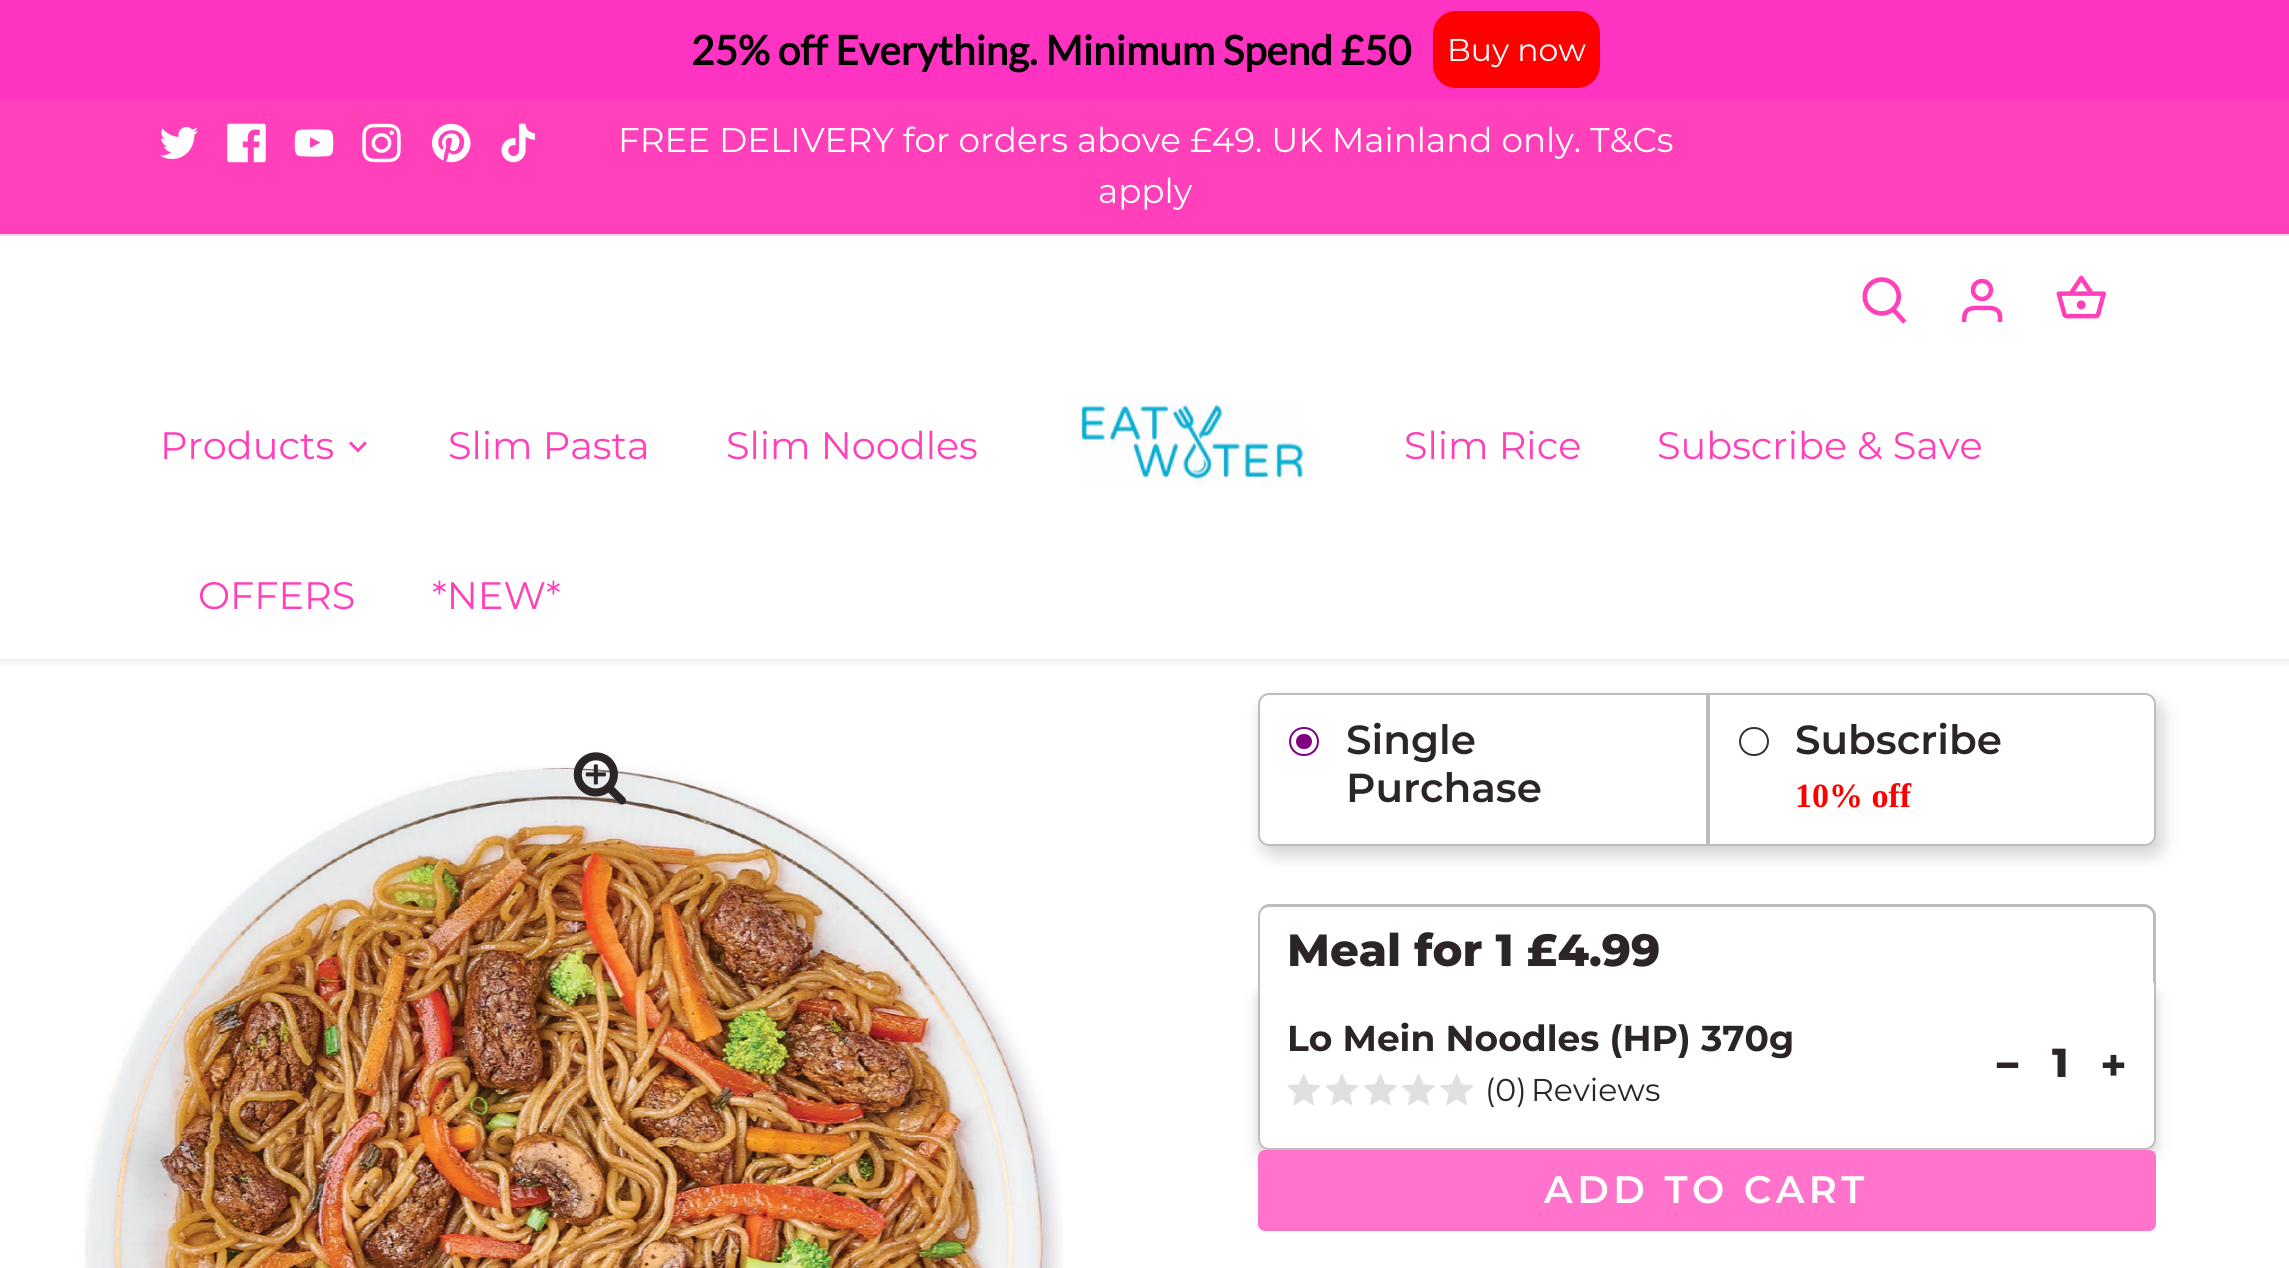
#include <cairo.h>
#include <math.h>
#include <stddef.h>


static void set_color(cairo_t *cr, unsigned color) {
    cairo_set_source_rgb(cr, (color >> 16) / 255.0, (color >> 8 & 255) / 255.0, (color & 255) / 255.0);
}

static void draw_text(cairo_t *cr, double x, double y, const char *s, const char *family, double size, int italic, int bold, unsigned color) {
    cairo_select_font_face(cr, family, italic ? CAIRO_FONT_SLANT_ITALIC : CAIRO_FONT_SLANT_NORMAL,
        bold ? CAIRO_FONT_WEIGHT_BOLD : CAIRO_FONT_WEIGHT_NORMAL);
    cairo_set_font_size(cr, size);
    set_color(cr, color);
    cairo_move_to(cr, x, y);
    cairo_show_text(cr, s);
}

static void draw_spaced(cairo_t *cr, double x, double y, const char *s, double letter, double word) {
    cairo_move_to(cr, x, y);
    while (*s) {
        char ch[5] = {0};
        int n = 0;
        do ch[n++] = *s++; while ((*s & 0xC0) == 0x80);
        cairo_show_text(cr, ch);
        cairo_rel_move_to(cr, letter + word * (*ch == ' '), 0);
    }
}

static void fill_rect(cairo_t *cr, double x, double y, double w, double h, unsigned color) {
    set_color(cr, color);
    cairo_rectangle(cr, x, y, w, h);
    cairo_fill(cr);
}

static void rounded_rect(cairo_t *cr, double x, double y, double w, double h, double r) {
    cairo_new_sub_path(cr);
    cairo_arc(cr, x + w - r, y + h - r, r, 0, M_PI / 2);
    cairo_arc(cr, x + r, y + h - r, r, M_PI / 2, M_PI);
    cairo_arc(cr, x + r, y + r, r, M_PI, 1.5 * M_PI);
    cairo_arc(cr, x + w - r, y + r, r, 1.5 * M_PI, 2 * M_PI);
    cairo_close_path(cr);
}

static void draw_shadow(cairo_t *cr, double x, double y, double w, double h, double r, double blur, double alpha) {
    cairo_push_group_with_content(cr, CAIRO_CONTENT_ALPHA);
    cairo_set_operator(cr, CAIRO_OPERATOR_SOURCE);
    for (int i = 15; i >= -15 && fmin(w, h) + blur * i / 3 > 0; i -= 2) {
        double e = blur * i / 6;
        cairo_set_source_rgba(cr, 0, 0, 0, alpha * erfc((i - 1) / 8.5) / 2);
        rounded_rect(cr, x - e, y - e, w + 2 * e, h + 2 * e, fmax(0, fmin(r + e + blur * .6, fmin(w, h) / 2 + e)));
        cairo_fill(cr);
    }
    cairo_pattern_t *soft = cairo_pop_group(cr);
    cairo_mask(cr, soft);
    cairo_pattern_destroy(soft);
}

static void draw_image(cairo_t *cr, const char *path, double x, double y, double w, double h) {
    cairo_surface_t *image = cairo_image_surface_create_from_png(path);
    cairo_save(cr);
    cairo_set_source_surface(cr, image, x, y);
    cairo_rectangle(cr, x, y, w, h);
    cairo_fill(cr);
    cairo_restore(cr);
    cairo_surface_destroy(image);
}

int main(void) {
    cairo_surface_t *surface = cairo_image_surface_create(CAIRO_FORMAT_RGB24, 2289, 1268);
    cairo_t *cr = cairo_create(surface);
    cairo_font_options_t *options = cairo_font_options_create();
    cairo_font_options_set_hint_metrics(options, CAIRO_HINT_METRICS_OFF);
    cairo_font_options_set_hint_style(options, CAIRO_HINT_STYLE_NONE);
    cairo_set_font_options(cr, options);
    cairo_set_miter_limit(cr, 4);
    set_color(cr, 0xFFFFFF);
    cairo_paint(cr);
    fill_rect(cr, 0, 0, 2289, 99, 0xFF33C2);
    draw_text(cr, 691, 65, "25% off Everything. Minimum Spend £50", "Lato", 40.5, 0, 1, 0x000000);
    set_color(cr, 0xFF0000);
    rounded_rect(cr, 1433, 11, 167, 77, 23);
    cairo_fill(cr);
    draw_text(cr, 1447, 61, "Buy now", "Montserrat", 31.5, 0, 0, 0xFFFFFF);
    set_color(cr, 0x000000);
    draw_shadow(cr, -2, 234, 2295, 428, 0, 3.5, 0.08);
    fill_rect(cr, 0, 99, 2289, 135, 0xFF40BA);
    fill_rect(cr, 0, 234, 2289, 2, 0xFFCFEE);
    draw_image(cr, "assets/img1.png", 160, 127, 38, 32);
    draw_image(cr, "assets/img2.png", 227, 123, 39, 40);
    draw_image(cr, "assets/img3.png", 294, 129, 40, 28);
    draw_image(cr, "assets/img4.png", 362, 123, 39, 40);
    draw_image(cr, "assets/img5.png", 432, 123, 39, 40);
    draw_image(cr, "assets/img6.png", 501, 123, 34, 40);
    draw_text(cr, 618, 152, "FREE DELIVERY for orders above £49. UK Mainland only. T&Cs", "Montserrat", 34.2, 0, 0, 0xFFFFFF);
    draw_text(cr, 1098, 203, "apply", "Montserrat", 34.2, 0, 0, 0xFFFFFF);
    fill_rect(cr, 0, 236, 2289, 423, 0xFFFFFF);
    draw_image(cr, "assets/img7.png", 1862, 277, 45, 47);
    cairo_arc(cr, 1982, 290, 9, 0, 2 * M_PI);
    set_color(cr, 0xFF40BA);
    cairo_set_line_width(cr, 4.5);
    cairo_stroke(cr);
    cairo_new_path(cr);
    cairo_move_to(cr, 2000, 322);
    cairo_line_to(cr, 2000, 315.5);
    cairo_curve_to(cr, 1998.5, 306.5, 1989, 308, 1982, 308);
    cairo_curve_to(cr, 1975.5, 308, 1966, 306.5, 1964.5, 315.5);
    cairo_line_to(cr, 1964, 322);
    cairo_stroke(cr);
    draw_image(cr, "assets/img8.png", 2056, 275, 50, 44);
    draw_text(cr, 160, 459, "Products", "Montserrat", 38.25, 0, 0, 0xFF40BA);
    cairo_new_path(cr);
    cairo_move_to(cr, 351, 441.5);
    cairo_line_to(cr, 358, 448.5);
    cairo_line_to(cr, 364.5, 441.5);
    cairo_line_to(cr, 367, 443.5);
    cairo_line_to(cr, 358, 452.5);
    cairo_line_to(cr, 349, 443.5);
    cairo_close_path(cr);
    cairo_fill(cr);
    draw_text(cr, 448, 459, "Slim Pasta", "Montserrat", 38.25, 0, 0, 0xFF40BA);
    draw_text(cr, 726, 459, "Slim Noodles", "Montserrat", 38.25, 0, 0, 0xFF40BA);
    draw_image(cr, "assets/img9.png", 1080, 404, 225, 83);
    draw_text(cr, 1404, 459, "Slim Rice", "Montserrat", 38.25, 0, 0, 0xFF40BA);
    draw_text(cr, 1657, 459, "Subscribe & Save", "Montserrat", 38.25, 0, 0, 0xFF40BA);
    draw_text(cr, 198, 609, "OFFERS", "Montserrat", 38.25, 0, 0, 0xFF40BA);
    draw_text(cr, 432, 609, "*NEW*", "Montserrat", 38.25, 0, 0, 0xFF40BA);
    draw_image(cr, "assets/img11.png", 84, 765, 979, 503);
    draw_image(cr, "assets/img10.png", 573, 752, 53, 53);
    cairo_save(cr);
    cairo_set_fill_rule(cr, CAIRO_FILL_RULE_EVEN_ODD);
    cairo_new_path(cr);
    cairo_move_to(cr, 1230, 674);
    cairo_line_to(cr, 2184, 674);
    cairo_line_to(cr, 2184, 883);
    cairo_line_to(cr, 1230, 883);
    cairo_close_path(cr);
    cairo_move_to(cr, 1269, 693);
    cairo_line_to(cr, 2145, 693);
    cairo_curve_to(cr, 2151, 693, 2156, 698, 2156, 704);
    cairo_line_to(cr, 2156, 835);
    cairo_curve_to(cr, 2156, 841, 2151, 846, 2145, 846);
    cairo_line_to(cr, 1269, 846);
    cairo_curve_to(cr, 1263, 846, 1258, 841, 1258, 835);
    cairo_line_to(cr, 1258, 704);
    cairo_curve_to(cr, 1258, 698, 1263, 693, 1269, 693);
    cairo_close_path(cr);
    cairo_clip(cr);
    set_color(cr, 0x000000);
    draw_shadow(cr, 1258, 702, 898, 153, 11, 9, 0.08);
    cairo_restore(cr);
    cairo_save(cr);
    cairo_set_fill_rule(cr, CAIRO_FILL_RULE_EVEN_ODD);
    cairo_new_path(cr);
    cairo_move_to(cr, 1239, 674);
    cairo_line_to(cr, 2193, 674);
    cairo_line_to(cr, 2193, 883);
    cairo_line_to(cr, 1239, 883);
    cairo_close_path(cr);
    cairo_move_to(cr, 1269, 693);
    cairo_line_to(cr, 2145, 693);
    cairo_curve_to(cr, 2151, 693, 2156, 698, 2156, 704);
    cairo_line_to(cr, 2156, 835);
    cairo_curve_to(cr, 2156, 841, 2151, 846, 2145, 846);
    cairo_line_to(cr, 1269, 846);
    cairo_curve_to(cr, 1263, 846, 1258, 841, 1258, 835);
    cairo_line_to(cr, 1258, 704);
    cairo_curve_to(cr, 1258, 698, 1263, 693, 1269, 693);
    cairo_close_path(cr);
    cairo_clip(cr);
    set_color(cr, 0x000000);
    draw_shadow(cr, 1267, 702, 898, 153, 11, 9, 0.12);
    cairo_restore(cr);
    cairo_new_path(cr);
    cairo_move_to(cr, 1269, 694);
    cairo_line_to(cr, 1707, 694);
    cairo_line_to(cr, 1707, 845);
    cairo_line_to(cr, 1269, 845);
    cairo_curve_to(cr, 1263.5, 845, 1259, 840.5, 1259, 835);
    cairo_line_to(cr, 1259, 704);
    cairo_curve_to(cr, 1259, 698.5, 1263.5, 694, 1269, 694);
    cairo_close_path(cr);
    set_color(cr, 0xBDBDBD);
    cairo_set_line_width(cr, 2);
    cairo_stroke(cr);
    rounded_rect(cr, 1290, 728, 28, 27, 13.5);
    set_color(cr, 0x800080);
    cairo_stroke(cr);
    rounded_rect(cr, 1296, 734, 16, 15, 7.5);
    cairo_fill(cr);
    draw_text(cr, 1346, 754, "Single", "Montserrat SemiBold", 40.5, 0, 0, 0x2C2528);
    draw_text(cr, 1346, 802, "Purchase", "Montserrat SemiBold", 40.5, 0, 0, 0x2C2528);
    cairo_new_path(cr);
    cairo_move_to(cr, 1709, 694);
    cairo_line_to(cr, 2145, 694);
    cairo_curve_to(cr, 2150.5, 694, 2155, 698.5, 2155, 704);
    cairo_line_to(cr, 2155, 835);
    cairo_curve_to(cr, 2155, 840.5, 2150.5, 845, 2145, 845);
    cairo_line_to(cr, 1709, 845);
    cairo_close_path(cr);
    set_color(cr, 0xBDBDBD);
    cairo_stroke(cr);
    rounded_rect(cr, 1740, 728, 28, 27, 13.5);
    set_color(cr, 0x333333);
    cairo_stroke(cr);
    draw_text(cr, 1795, 754, "Subscribe", "Montserrat SemiBold", 40.5, 0, 0, 0x2C2528);
    draw_text(cr, 1795, 807, "10% off", "Liberation Serif", 34, 0, 1, 0xFF0000);
    cairo_save(cr);
    cairo_set_fill_rule(cr, CAIRO_FILL_RULE_EVEN_ODD);
    cairo_new_path(cr);
    cairo_move_to(cr, 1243, 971);
    cairo_line_to(cr, 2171, 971);
    cairo_line_to(cr, 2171, 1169);
    cairo_line_to(cr, 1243, 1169);
    cairo_close_path(cr);
    cairo_move_to(cr, 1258, 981);
    cairo_line_to(cr, 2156, 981);
    cairo_line_to(cr, 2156, 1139);
    cairo_curve_to(cr, 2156, 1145, 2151, 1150, 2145, 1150);
    cairo_line_to(cr, 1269, 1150);
    cairo_curve_to(cr, 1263, 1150, 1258, 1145, 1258, 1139);
    cairo_close_path(cr);
    cairo_clip(cr);
    set_color(cr, 0x000000);
    draw_shadow(cr, 1258, 986, 898, 168, 11, 4.5, 0.08);
    cairo_restore(cr);
    cairo_save(cr);
    cairo_set_fill_rule(cr, CAIRO_FILL_RULE_EVEN_ODD);
    cairo_new_path(cr);
    cairo_move_to(cr, 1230, 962);
    cairo_line_to(cr, 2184, 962);
    cairo_line_to(cr, 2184, 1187);
    cairo_line_to(cr, 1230, 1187);
    cairo_close_path(cr);
    cairo_move_to(cr, 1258, 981);
    cairo_line_to(cr, 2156, 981);
    cairo_line_to(cr, 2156, 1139);
    cairo_curve_to(cr, 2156, 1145, 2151, 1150, 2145, 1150);
    cairo_line_to(cr, 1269, 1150);
    cairo_curve_to(cr, 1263, 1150, 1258, 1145, 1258, 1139);
    cairo_close_path(cr);
    cairo_clip(cr);
    set_color(cr, 0x000000);
    draw_shadow(cr, 1258, 990, 898, 169, 11, 9, 0.12);
    cairo_restore(cr);
    cairo_new_path(cr);
    cairo_move_to(cr, 1259, 982);
    cairo_line_to(cr, 2155, 982);
    cairo_line_to(cr, 2155, 1139);
    cairo_curve_to(cr, 2155, 1144.5, 2150.5, 1149, 2145, 1149);
    cairo_line_to(cr, 1269, 1149);
    cairo_curve_to(cr, 1263.5, 1149, 1259, 1144.5, 1259, 1139);
    cairo_close_path(cr);
    set_color(cr, 0xBDBDBD);
    cairo_stroke(cr);
    set_color(cr, 0xFFFFFF);
    cairo_new_path(cr);
    cairo_move_to(cr, 1269, 905);
    cairo_line_to(cr, 2145, 905);
    cairo_curve_to(cr, 2151, 905, 2156, 910, 2156, 916);
    cairo_line_to(cr, 2156, 983);
    cairo_line_to(cr, 1258, 983);
    cairo_line_to(cr, 1258, 916);
    cairo_curve_to(cr, 1258, 910, 1263, 905, 1269, 905);
    cairo_close_path(cr);
    cairo_fill(cr);
    set_color(cr, 0xBDBDBD);
    cairo_set_fill_rule(cr, CAIRO_FILL_RULE_EVEN_ODD);
    cairo_new_path(cr);
    cairo_move_to(cr, 1269, 904);
    cairo_line_to(cr, 2144, 904);
    cairo_curve_to(cr, 2150, 904, 2156, 910, 2156, 916);
    cairo_line_to(cr, 2156, 983);
    cairo_line_to(cr, 1258, 983);
    cairo_line_to(cr, 1258, 916);
    cairo_curve_to(cr, 1258, 910, 1263, 904, 1269, 904);
    cairo_close_path(cr);
    cairo_move_to(cr, 1269, 907);
    cairo_line_to(cr, 2144, 907);
    cairo_curve_to(cr, 2149, 907, 2153, 911, 2153, 916);
    cairo_line_to(cr, 2153, 983);
    cairo_line_to(cr, 1260, 983);
    cairo_line_to(cr, 1260, 916);
    cairo_curve_to(cr, 1260, 911, 1264, 907, 1269, 907);
    cairo_close_path(cr);
    cairo_fill(cr);
    draw_text(cr, 1287, 966, "Meal for 1 £4.99", "Montserrat ExtraBold", 45, 0, 0, 0x2C2528);
    draw_text(cr, 1287, 1051, "Lo Mein Noodles (HP) 370g", "Montserrat", 36, 0, 1, 0x2C2528);
    draw_text(cr, 1994, 1081, "−", "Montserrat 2", 45, 0, 1, 0x2C2528);
    draw_text(cr, 2052, 1077, "1", "Montserrat ExtraBold", 40.5, 0, 0, 0x2C2528);
    draw_text(cr, 2100, 1081, "+", "Montserrat", 45, 0, 1, 0x2C2528);
    draw_image(cr, "assets/img12.png", 1287, 1074, 33, 31);
    draw_image(cr, "assets/img13.png", 1325, 1074, 34, 31);
    draw_image(cr, "assets/img14.png", 1364, 1074, 33, 31);
    draw_image(cr, "assets/img15.png", 1402, 1074, 33, 31);
    draw_image(cr, "assets/img12.png", 1440, 1074, 33, 31);
    draw_text(cr, 1485, 1101, "(0)", "Montserrat", 31.5, 0, 0, 0x2C2528);
    draw_text(cr, 1531, 1101, "Reviews", "Montserrat", 31.5, 0, 0, 0x2C2528);
    set_color(cr, 0xFF73CC);
    rounded_rect(cr, 1258, 1150, 898, 81, 7);
    cairo_fill(cr);
    cairo_select_font_face(cr, "Montserrat SemiBold", CAIRO_FONT_SLANT_NORMAL, CAIRO_FONT_WEIGHT_NORMAL);
    cairo_set_font_size(cr, 38.25);
    set_color(cr, 0xFFFFFF);
    draw_spaced(cr, 1544, 1203, "ADD TO CART", 4.5, 0);
    cairo_surface_write_to_png(surface, "output.png");
    cairo_font_options_destroy(options);
    cairo_destroy(cr);
    cairo_surface_destroy(surface);
    return 0;
}
